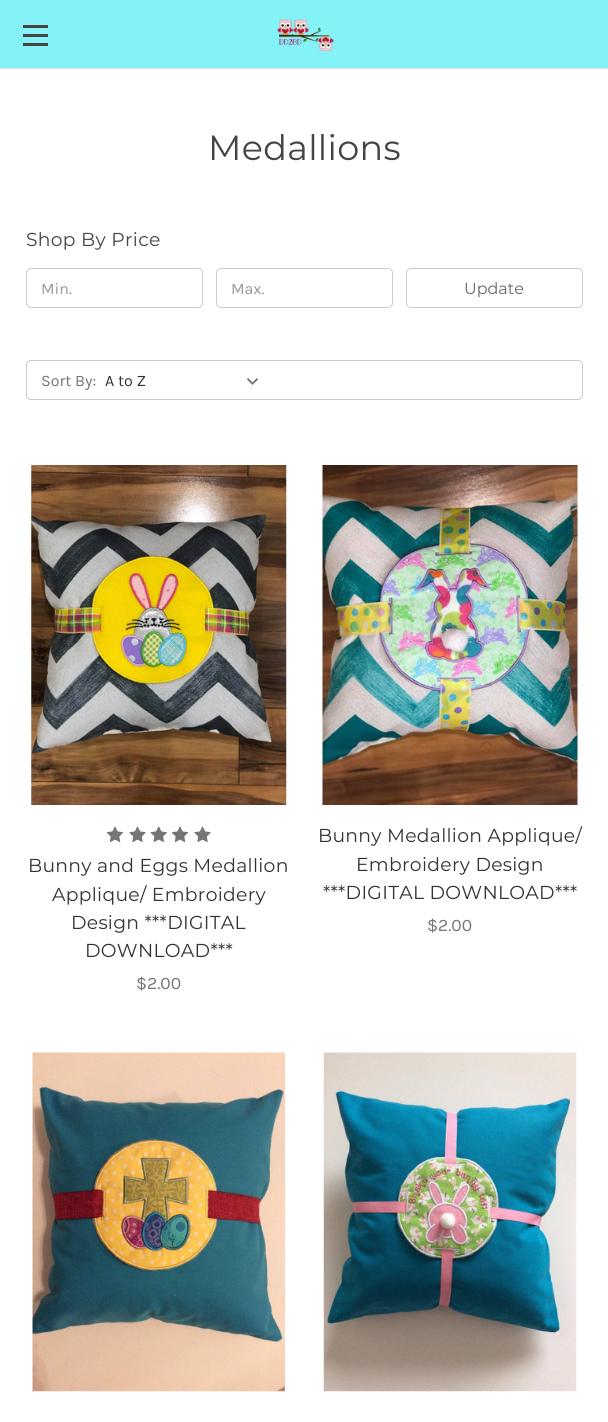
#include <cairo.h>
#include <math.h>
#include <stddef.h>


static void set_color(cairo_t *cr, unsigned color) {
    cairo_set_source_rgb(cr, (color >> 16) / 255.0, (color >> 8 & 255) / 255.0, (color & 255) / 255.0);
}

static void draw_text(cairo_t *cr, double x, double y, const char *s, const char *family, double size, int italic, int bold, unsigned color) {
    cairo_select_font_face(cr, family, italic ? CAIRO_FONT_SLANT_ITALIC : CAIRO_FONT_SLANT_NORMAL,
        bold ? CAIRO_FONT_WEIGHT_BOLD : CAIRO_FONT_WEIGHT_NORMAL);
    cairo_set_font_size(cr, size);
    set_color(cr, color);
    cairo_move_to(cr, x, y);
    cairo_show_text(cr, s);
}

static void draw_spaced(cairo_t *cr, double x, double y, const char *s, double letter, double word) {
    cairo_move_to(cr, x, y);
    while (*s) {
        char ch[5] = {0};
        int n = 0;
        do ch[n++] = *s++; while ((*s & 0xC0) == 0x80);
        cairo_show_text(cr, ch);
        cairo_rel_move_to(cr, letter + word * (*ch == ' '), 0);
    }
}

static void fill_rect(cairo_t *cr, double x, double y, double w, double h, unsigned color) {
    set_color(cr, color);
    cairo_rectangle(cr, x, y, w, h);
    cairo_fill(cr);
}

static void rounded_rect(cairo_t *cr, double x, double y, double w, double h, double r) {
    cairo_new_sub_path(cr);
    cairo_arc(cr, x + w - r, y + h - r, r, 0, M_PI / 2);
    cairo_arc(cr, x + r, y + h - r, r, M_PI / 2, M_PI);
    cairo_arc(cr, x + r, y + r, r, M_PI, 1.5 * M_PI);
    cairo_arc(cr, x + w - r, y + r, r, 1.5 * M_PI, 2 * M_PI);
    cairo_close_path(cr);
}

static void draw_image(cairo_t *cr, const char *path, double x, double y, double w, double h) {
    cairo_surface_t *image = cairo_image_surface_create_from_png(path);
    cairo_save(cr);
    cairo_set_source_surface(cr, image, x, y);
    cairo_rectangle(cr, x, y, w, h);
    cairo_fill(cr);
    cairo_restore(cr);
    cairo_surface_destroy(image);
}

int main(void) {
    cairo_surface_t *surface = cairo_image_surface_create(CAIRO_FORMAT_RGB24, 608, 1422);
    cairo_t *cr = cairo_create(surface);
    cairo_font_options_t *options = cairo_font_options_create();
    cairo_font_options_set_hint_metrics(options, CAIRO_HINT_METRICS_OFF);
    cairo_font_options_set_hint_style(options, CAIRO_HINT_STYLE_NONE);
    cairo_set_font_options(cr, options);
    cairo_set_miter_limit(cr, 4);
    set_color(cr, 0xFFFFFF);
    cairo_paint(cr);
    fill_rect(cr, 0, 0, 608, 68, 0x84F3F7);
    fill_rect(cr, 0, 68, 608, 1, 0xE5E5E5);
    fill_rect(cr, 23, 34, 25, 3, 0x444444);
    fill_rect(cr, 23, 25, 25, 3, 0x444444);
    fill_rect(cr, 23, 43, 25, 3, 0x444444);
    draw_image(cr, "assets/img1.png", 277, 19, 57, 33);
    cairo_select_font_face(cr, "Montserrat Thin", CAIRO_FONT_SLANT_NORMAL, CAIRO_FONT_WEIGHT_NORMAL);
    cairo_set_font_size(cr, 35);
    draw_spaced(cr, 208, 160, "Medallions", 0.3, 0);
    cairo_set_font_size(cr, 18.75);
    draw_spaced(cr, 26, 246, "Shop By Price", 0.3, 0);
    rounded_rect(cr, 26.5, 268.5, 176, 39, 4.5);
    set_color(cr, 0xCCCCCC);
    cairo_set_line_width(cr, 1);
    cairo_stroke(cr);
    draw_text(cr, 41, 294, "Min.", "Karla", 16, 0, 0, 0x999999);
    rounded_rect(cr, 216.5, 268.5, 176, 39, 4.5);
    set_color(cr, 0xCCCCCC);
    cairo_stroke(cr);
    draw_text(cr, 231, 294, "Max.", "Karla", 16, 0, 0, 0x999999);
    rounded_rect(cr, 406.5, 268.5, 176, 39, 4.5);
    set_color(cr, 0xCCCCCC);
    cairo_stroke(cr);
    draw_text(cr, 464, 294, "Update", "Montserrat Thin", 16, 0, 0, 0x666666);
    rounded_rect(cr, 26.5, 360.5, 556, 39, 4.5);
    set_color(cr, 0xCCCCCC);
    cairo_stroke(cr);
    draw_text(cr, 41, 386, "Sort By:", "Karla", 16, 0, 0, 0x757575);
    draw_image(cr, "assets/img2.png", 247, 378, 11, 7);
    draw_text(cr, 105, 386, "A to Z", "Karla", 16, 0, 0, 0x333333);
    draw_image(cr, "assets/img3.png", 31, 465, 256, 340);
    draw_image(cr, "assets/img4.png", 106, 826, 18, 16);
    draw_image(cr, "assets/img5.png", 129, 826, 17, 16);
    draw_image(cr, "assets/img6.png", 150, 826, 17, 16);
    draw_image(cr, "assets/img4.png", 171, 826, 18, 16);
    draw_image(cr, "assets/img5.png", 194, 826, 17, 16);
    cairo_select_font_face(cr, "Montserrat Thin", CAIRO_FONT_SLANT_NORMAL, CAIRO_FONT_WEIGHT_NORMAL);
    cairo_set_font_size(cr, 18.75);
    draw_spaced(cr, 28, 872, "Bunny and Eggs Medallion", 0.3, 0);
    draw_spaced(cr, 52, 901, "Applique/ Embroidery", 0.3, 0);
    draw_spaced(cr, 71, 929, "Design ***DIGITAL", 0.3, 0);
    draw_spaced(cr, 85, 957, "DOWNLOAD***", 0.3, 0);
    draw_text(cr, 136, 989, "$2.00", "Karla", 17.5, 0, 0, 0x757575);
    draw_image(cr, "assets/img7.png", 322, 465, 256, 340);
    cairo_select_font_face(cr, "Montserrat Thin", CAIRO_FONT_SLANT_NORMAL, CAIRO_FONT_WEIGHT_NORMAL);
    cairo_set_font_size(cr, 18.75);
    set_color(cr, 0x333333);
    draw_spaced(cr, 318, 842, "Bunny Medallion Applique/", 0.3, 0);
    draw_spaced(cr, 356, 871, "Embroidery Design", 0.3, 0);
    draw_spaced(cr, 323, 899, "***DIGITAL DOWNLOAD***", 0.3, 0);
    draw_text(cr, 427, 931, "$2.00", "Karla", 17.5, 0, 0, 0x757575);
    draw_image(cr, "assets/img8.png", 32, 1052, 253, 340);
    draw_image(cr, "assets/img9.png", 323, 1052, 254, 340);
    cairo_surface_write_to_png(surface, "output.png");
    cairo_font_options_destroy(options);
    cairo_destroy(cr);
    cairo_surface_destroy(surface);
    return 0;
}
